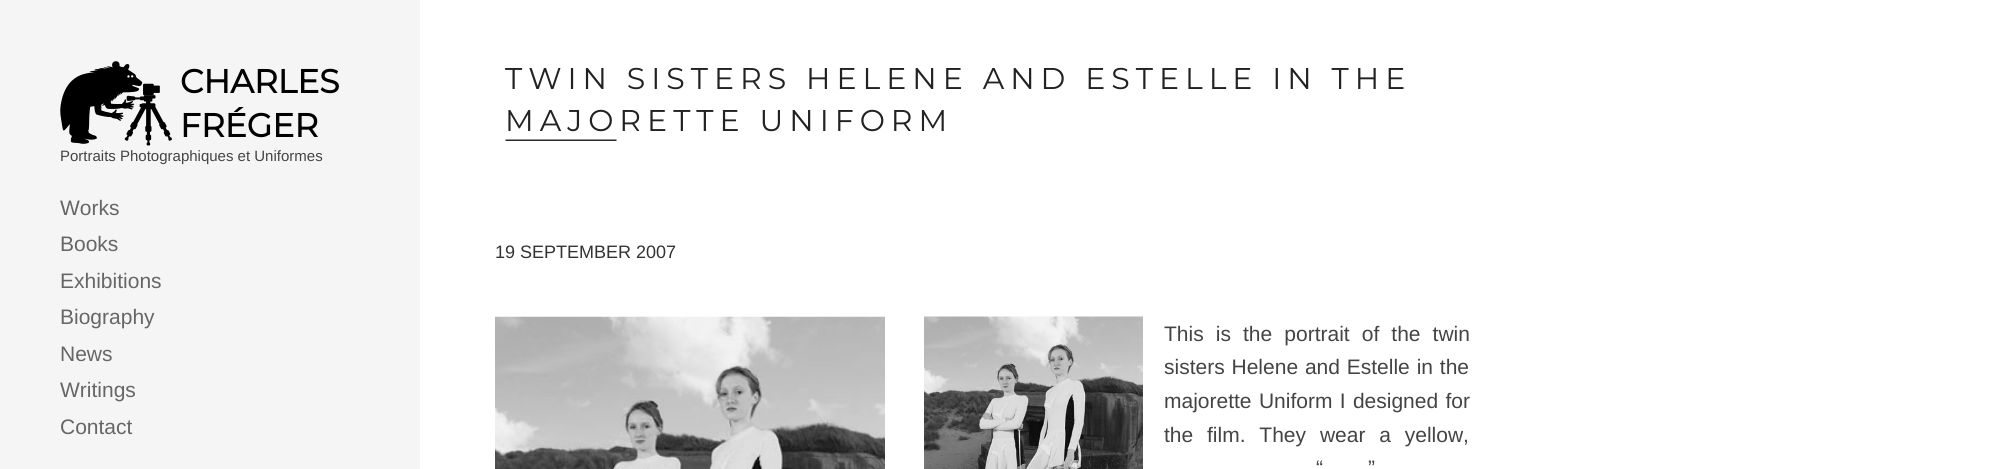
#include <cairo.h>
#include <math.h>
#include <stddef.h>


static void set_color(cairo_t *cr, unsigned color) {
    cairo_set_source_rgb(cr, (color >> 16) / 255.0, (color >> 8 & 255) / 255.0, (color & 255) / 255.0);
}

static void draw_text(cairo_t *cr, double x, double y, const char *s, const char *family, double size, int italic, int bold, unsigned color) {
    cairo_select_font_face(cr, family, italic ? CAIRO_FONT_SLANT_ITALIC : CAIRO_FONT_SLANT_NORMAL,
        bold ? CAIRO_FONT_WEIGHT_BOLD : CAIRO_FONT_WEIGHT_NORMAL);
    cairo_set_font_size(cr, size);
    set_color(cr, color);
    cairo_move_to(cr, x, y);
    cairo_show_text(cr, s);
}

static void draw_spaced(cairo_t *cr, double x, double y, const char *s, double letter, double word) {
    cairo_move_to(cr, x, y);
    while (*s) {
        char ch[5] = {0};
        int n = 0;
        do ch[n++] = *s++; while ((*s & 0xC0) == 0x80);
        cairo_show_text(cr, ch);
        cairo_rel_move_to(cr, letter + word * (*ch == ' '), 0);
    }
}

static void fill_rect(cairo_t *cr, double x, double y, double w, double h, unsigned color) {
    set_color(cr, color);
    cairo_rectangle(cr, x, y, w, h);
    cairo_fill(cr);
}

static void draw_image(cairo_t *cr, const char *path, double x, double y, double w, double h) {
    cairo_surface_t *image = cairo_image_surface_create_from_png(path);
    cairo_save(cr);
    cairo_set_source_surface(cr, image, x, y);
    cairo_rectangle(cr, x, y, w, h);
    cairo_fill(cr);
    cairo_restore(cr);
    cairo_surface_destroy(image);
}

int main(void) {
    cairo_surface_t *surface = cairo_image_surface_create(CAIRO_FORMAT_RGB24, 1999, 469);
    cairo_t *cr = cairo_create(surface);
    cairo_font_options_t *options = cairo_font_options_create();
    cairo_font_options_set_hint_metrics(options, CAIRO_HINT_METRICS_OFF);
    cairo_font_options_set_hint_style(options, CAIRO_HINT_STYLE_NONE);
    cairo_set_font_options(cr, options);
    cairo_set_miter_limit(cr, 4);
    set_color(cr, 0xFFFFFF);
    cairo_paint(cr);
    fill_rect(cr, 0, 0, 420, 469, 0xF5F5F5);
    draw_image(cr, "assets/img1.png", 60, 61, 112, 85);
    draw_text(cr, 180, 93, "CHARLES", "Montserrat", 33, 0, 1, 0x000000);
    draw_text(cr, 180, 137, "FRÉGER", "Montserrat", 33, 0, 1, 0x000000);
    draw_text(cr, 60, 161, "Portraits Photographiques et Uniformes", "Liberation Sans", 15, 0, 0, 0x444444);
    draw_text(cr, 60, 215, "Works", "Liberation Sans", 21, 0, 0, 0x666666);
    draw_text(cr, 60, 251, "Books", "Liberation Sans", 21, 0, 0, 0x666666);
    draw_text(cr, 60, 288, "Exhibitions", "Liberation Sans", 21, 0, 0, 0x666666);
    draw_text(cr, 60, 324, "Biography", "Liberation Sans", 21, 0, 0, 0x666666);
    draw_text(cr, 60, 361, "News", "Liberation Sans", 21, 0, 0, 0x666666);
    draw_text(cr, 60, 397, "Writings", "Liberation Sans", 21, 0, 0, 0x666666);
    draw_text(cr, 60, 434, "Contact", "Liberation Sans", 21, 0, 0, 0x666666);
    draw_image(cr, "assets/img2.png", 505, 139, 112, 2);
    cairo_select_font_face(cr, "Montserrat Thin", CAIRO_FONT_SLANT_NORMAL, CAIRO_FONT_WEIGHT_NORMAL);
    cairo_set_font_size(cr, 30);
    set_color(cr, 0x222222);
    draw_spaced(cr, 505, 89, "TWIN SISTERS HELENE AND ESTELLE IN THE", 6, 0);
    draw_spaced(cr, 505, 131, "MAJORETTE UNIFORM", 6, 0);
    draw_text(cr, 495, 258, "19 SEPTEMBER 2007", "Liberation Sans", 18, 0, 0, 0x333333);
    draw_image(cr, "assets/img3.png", 495, 316, 390, 153);
    draw_image(cr, "assets/img4.png", 924, 316, 219, 153);
    cairo_set_font_size(cr, 21);
    set_color(cr, 0x444444);
    draw_spaced(cr, 1164, 341, "This is the portrait of the twin", 0, 6.25);
    draw_spaced(cr, 1164, 374, "sisters Helene and Estelle in the", 0, 1);
    draw_spaced(cr, 1164, 408, "majorette Uniform I designed for", 0, 1.5);
    draw_spaced(cr, 1164, 442, "the film. They wear a yellow,", 0, 8);
    draw_text(cr, 1316, 475, "“", "Liberation Sans", 21, 0, 0, 0x444444);
    draw_text(cr, 1368, 475, "”", "Liberation Sans", 21, 0, 0, 0x444444);
    cairo_surface_write_to_png(surface, "output.png");
    cairo_font_options_destroy(options);
    cairo_destroy(cr);
    cairo_surface_destroy(surface);
    return 0;
}
